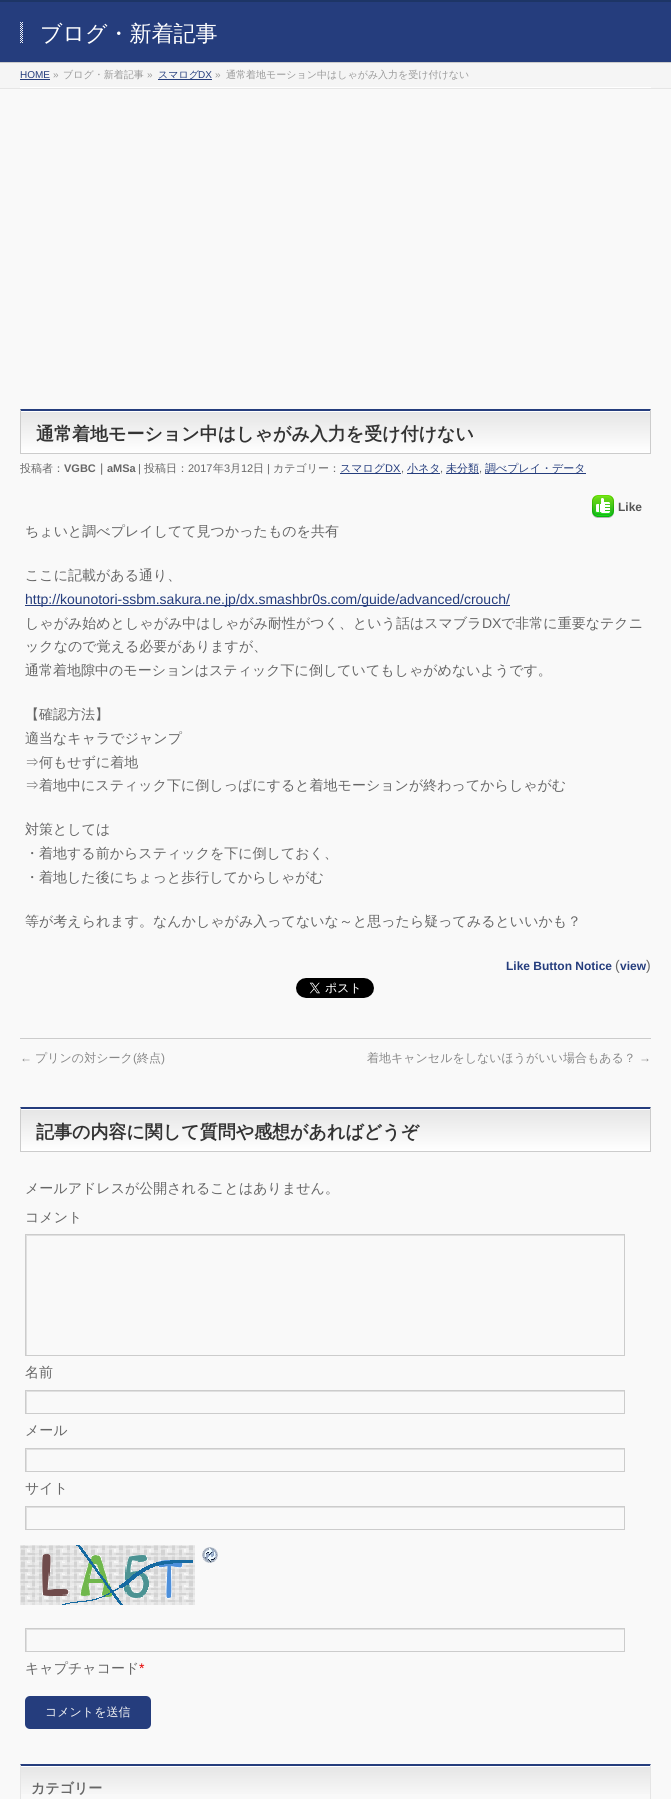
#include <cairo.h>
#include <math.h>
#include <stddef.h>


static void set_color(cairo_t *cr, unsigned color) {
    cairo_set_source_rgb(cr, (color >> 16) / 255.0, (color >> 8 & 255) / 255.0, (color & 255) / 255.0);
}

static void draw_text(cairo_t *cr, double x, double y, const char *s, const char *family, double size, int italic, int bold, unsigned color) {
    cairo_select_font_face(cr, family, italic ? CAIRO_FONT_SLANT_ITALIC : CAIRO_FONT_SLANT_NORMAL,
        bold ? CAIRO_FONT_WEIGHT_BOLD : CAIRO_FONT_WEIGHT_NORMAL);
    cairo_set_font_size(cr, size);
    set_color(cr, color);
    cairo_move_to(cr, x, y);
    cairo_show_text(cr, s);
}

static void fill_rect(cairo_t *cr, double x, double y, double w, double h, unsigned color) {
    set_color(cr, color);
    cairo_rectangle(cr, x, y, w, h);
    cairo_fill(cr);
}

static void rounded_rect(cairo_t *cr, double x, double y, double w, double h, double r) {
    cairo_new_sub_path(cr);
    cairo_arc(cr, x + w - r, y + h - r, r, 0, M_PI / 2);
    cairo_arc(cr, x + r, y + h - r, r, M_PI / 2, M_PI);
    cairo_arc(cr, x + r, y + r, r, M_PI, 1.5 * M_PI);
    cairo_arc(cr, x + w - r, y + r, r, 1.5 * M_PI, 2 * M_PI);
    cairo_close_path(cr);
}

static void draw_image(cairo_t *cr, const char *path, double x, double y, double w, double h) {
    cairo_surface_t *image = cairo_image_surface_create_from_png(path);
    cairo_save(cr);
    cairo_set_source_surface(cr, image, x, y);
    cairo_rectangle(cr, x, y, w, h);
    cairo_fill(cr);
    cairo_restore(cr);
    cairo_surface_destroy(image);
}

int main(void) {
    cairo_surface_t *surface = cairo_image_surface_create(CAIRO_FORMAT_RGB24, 671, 1799);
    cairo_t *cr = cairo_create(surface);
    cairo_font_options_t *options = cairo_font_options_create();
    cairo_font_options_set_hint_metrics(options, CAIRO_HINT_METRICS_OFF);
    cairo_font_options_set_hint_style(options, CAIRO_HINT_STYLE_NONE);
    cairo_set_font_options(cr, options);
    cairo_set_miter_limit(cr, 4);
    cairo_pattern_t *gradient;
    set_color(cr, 0xF9F9F9);
    cairo_paint(cr);
    gradient = cairo_pattern_create_linear(335, -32, 335, 2);
    cairo_pattern_add_color_stop_rgba(gradient, 0, 0.145, 0.239, 0.49, 1);
    cairo_pattern_add_color_stop_rgba(gradient, 1, 0.114, 0.208, 0.396, 1);
    cairo_set_source(cr, gradient);
    cairo_pattern_destroy(gradient);
    cairo_rectangle(cr, 0, 0, 671, 2);
    cairo_fill(cr);
    fill_rect(cr, 0, 2, 671, 60, 0x253D7D);
    fill_rect(cr, 0, 62, 671, 1, 0xCCCCCC);
    draw_image(cr, "assets/img1.png", 20, 22, 3, 21);
    draw_text(cr, 40, 41, "ブログ・新着記事", "WenQuanYi Zen Hei Medium", 22, 0, 0, 0xFFFFFF);
    fill_rect(cr, 0, 63, 671, 25, 0xF5F5F5);
    fill_rect(cr, 0, 88, 671, 1, 0xE5E5E5);
    fill_rect(cr, 20, 87, 631, 1, 0xFFFFFF);
    draw_text(cr, 20, 78, "HOME", "Liberation Sans", 10, 0, 0, 0x253D7D);
    fill_rect(cr, 20, 79, 30, 1, 0x253D7D);
    draw_text(cr, 53, 78, "»", "Liberation Sans", 10, 0, 0, 0x999999);
    draw_text(cr, 63, 78, "ブログ・新着記事", "WenQuanYi Zen Hei Medium", 10, 0, 0, 0x999999);
    draw_text(cr, 147, 78, "»", "Liberation Sans", 10, 0, 0, 0x999999);
    fill_rect(cr, 158, 79, 54, 1, 0x253D7D);
    draw_text(cr, 158, 78, "スマログ", "WenQuanYi Zen Hei Medium", 10, 0, 0, 0x253D7D);
    draw_text(cr, 198, 78, "DX", "Liberation Sans", 10, 0, 0, 0x253D7D);
    draw_text(cr, 215, 78, "»", "Liberation Sans", 10, 0, 0, 0x999999);
    draw_text(cr, 226, 78, "通常着地モーション中はしゃがみ入力を受け付けない", "WenQuanYi Zen Hei Medium", 10, 0, 0, 0x999999);
    gradient = cairo_pattern_create_linear(21, 411, 21, 453);
    cairo_pattern_add_color_stop_rgba(gradient, 0, 0.898, 0.898, 0.898, 1);
    cairo_pattern_add_color_stop_rgba(gradient, 1, 1, 1, 1, 1);
    cairo_set_source(cr, gradient);
    cairo_pattern_destroy(gradient);
    cairo_rectangle(cr, 21, 412, 629, 41);
    cairo_fill(cr);
    fill_rect(cr, 21, 411, 629, 1, 0xFFFFFF);
    set_color(cr, 0x253D7D);
    cairo_new_path(cr);
    cairo_move_to(cr, 20, 409);
    cairo_line_to(cr, 651, 409);
    cairo_line_to(cr, 650, 411);
    cairo_line_to(cr, 21, 411);
    cairo_close_path(cr);
    cairo_fill(cr);
    set_color(cr, 0xCCCCCC);
    cairo_new_path(cr);
    cairo_move_to(cr, 651, 409);
    cairo_line_to(cr, 651, 454);
    cairo_line_to(cr, 650, 453);
    cairo_line_to(cr, 650, 411);
    cairo_close_path(cr);
    cairo_fill(cr);
    fill_rect(cr, 20, 453, 631, 1, 0xCCCCCC);
    cairo_new_path(cr);
    cairo_move_to(cr, 20, 454);
    cairo_line_to(cr, 20, 409);
    cairo_line_to(cr, 21, 411);
    cairo_line_to(cr, 21, 453);
    cairo_close_path(cr);
    cairo_fill(cr);
    draw_text(cr, 36, 440, "通常着地モーション中はしゃがみ入力を受け付けない", "WenQuanYi Zen Hei", 18, 0, 1, 0x333333);
    draw_text(cr, 20, 472, "投稿者：", "WenQuanYi Zen Hei Medium", 11, 0, 0, 0x666666);
    draw_text(cr, 64, 472, "VGBC", "Liberation Sans", 11, 0, 1, 0x666666);
    draw_text(cr, 96, 472, "｜", "WenQuanYi Zen Hei", 11, 0, 1, 0x666666);
    draw_text(cr, 107, 472, "aMSa", "Liberation Sans", 11, 0, 1, 0x666666);
    draw_text(cr, 138, 472, "|", "Liberation Sans", 11, 0, 0, 0x666666);
    draw_text(cr, 144, 472, "投稿日：", "WenQuanYi Zen Hei Medium", 11, 0, 0, 0x666666);
    draw_text(cr, 188, 472, "2017", "Liberation Sans", 11, 0, 0, 0x666666);
    draw_text(cr, 213, 472, "年", "WenQuanYi Zen Hei Medium", 11, 0, 0, 0x666666);
    draw_text(cr, 224, 472, "3", "Liberation Sans", 11, 0, 0, 0x666666);
    draw_text(cr, 230, 472, "月", "WenQuanYi Zen Hei Medium", 11, 0, 0, 0x666666);
    draw_text(cr, 241, 472, "12", "Liberation Sans", 11, 0, 0, 0x666666);
    draw_text(cr, 253, 472, "日", "WenQuanYi Zen Hei Medium", 11, 0, 0, 0x666666);
    draw_text(cr, 267, 472, "|", "Liberation Sans", 11, 0, 0, 0x666666);
    draw_text(cr, 273, 472, "カテゴリー：", "WenQuanYi Zen Hei Medium", 11, 0, 0, 0x666666);
    fill_rect(cr, 340, 473, 61, 1, 0x253D7D);
    draw_text(cr, 340, 472, "スマログ", "WenQuanYi Zen Hei Medium", 11, 0, 0, 0x253D7D);
    draw_text(cr, 385, 472, "DX", "Liberation Sans", 11, 0, 0, 0x253D7D);
    draw_text(cr, 401, 472, ",", "Liberation Sans", 11, 0, 0, 0x666666);
    fill_rect(cr, 407, 473, 33, 1, 0x253D7D);
    draw_text(cr, 407, 472, "小ネタ", "WenQuanYi Zen Hei Medium", 11, 0, 0, 0x253D7D);
    draw_text(cr, 440, 472, ",", "Liberation Sans", 11, 0, 0, 0x666666);
    fill_rect(cr, 446, 473, 33, 1, 0x253D7D);
    draw_text(cr, 446, 472, "未分類", "WenQuanYi Zen Hei Medium", 11, 0, 0, 0x253D7D);
    draw_text(cr, 479, 472, ",", "Liberation Sans", 11, 0, 0, 0x666666);
    fill_rect(cr, 485, 473, 101, 1, 0x253D7D);
    draw_text(cr, 485, 472, "調べプレイ・データ", "WenQuanYi Zen Hei Medium", 11, 0, 0, 0x253D7D);
    draw_image(cr, "assets/img2.png", 592, 495, 22, 23);
    draw_text(cr, 618, 511, "Like", "Liberation Sans", 12, 0, 1, 0x555555);
    draw_text(cr, 25, 536, "ちょいと調べプレイしてて見つかったものを共有", "WenQuanYi Zen Hei Medium", 14, 0, 0, 0x666666);
    draw_text(cr, 25, 580, "ここに記載がある通り、", "WenQuanYi Zen Hei Medium", 14, 0, 0, 0x666666);
    fill_rect(cr, 25, 605, 485, 1, 0x253D7D);
    draw_text(cr, 25, 604, "http://kounotori-ssbm.sakura.ne.jp/dx.smashbr0s.com/guide/advanced/crouch/", "Liberation Sans", 14, 0, 0, 0x253D7D);
    draw_text(cr, 25, 628, "しゃがみ始めとしゃがみ中はしゃがみ耐性がつく、という話はスマブラ", "WenQuanYi Zen Hei Medium", 14, 0, 0, 0x666666);
    draw_text(cr, 482, 628, "DX", "Liberation Sans", 14, 0, 0, 0x666666);
    draw_text(cr, 501, 628, "で非常に重要なテクニ", "WenQuanYi Zen Hei Medium", 14, 0, 0, 0x666666);
    draw_text(cr, 25, 651, "ックなので覚える必要がありますが、", "WenQuanYi Zen Hei Medium", 14, 0, 0, 0x666666);
    draw_text(cr, 25, 675, "通常着地隙中のモーションはスティック下に倒していてもしゃがめないようです。", "WenQuanYi Zen Hei Medium", 14, 0, 0, 0x666666);
    draw_text(cr, 25, 719, "【確認方法】", "WenQuanYi Zen Hei Medium", 14, 0, 0, 0x666666);
    draw_text(cr, 25, 743, "適当なキャラでジャンプ", "WenQuanYi Zen Hei Medium", 14, 0, 0, 0x666666);
    draw_text(cr, 25, 767, "⇒何もせずに着地", "WenQuanYi Zen Hei Medium", 14, 0, 0, 0x666666);
    draw_text(cr, 25, 790, "⇒着地中にスティック下に倒しっぱにすると着地モーションが終わってからしゃがむ", "WenQuanYi Zen Hei Medium", 14, 0, 0, 0x666666);
    draw_text(cr, 25, 834, "対策としては", "WenQuanYi Zen Hei Medium", 14, 0, 0, 0x666666);
    draw_text(cr, 25, 858, "・着地する前からスティックを下に倒しておく、", "WenQuanYi Zen Hei Medium", 14, 0, 0, 0x666666);
    draw_text(cr, 25, 882, "・着地した後にちょっと歩行してからしゃがむ", "WenQuanYi Zen Hei Medium", 14, 0, 0, 0x666666);
    draw_text(cr, 25, 926, "等が考えられます。なんかしゃがみ入ってないな～と思ったら疑ってみるといいかも？", "WenQuanYi Zen Hei Medium", 14, 0, 0, 0x666666);
    draw_text(cr, 506, 970, "Like Button Notice", "Liberation Sans", 12, 0, 1, 0x253D7D);
    draw_text(cr, 615, 970, "(", "Liberation Sans", 14, 0, 0, 0x666666);
    draw_text(cr, 646, 970, ")", "Liberation Sans", 14, 0, 0, 0x666666);
    draw_text(cr, 620, 970, "view", "Liberation Sans", 12, 0, 1, 0x253D7D);
    draw_image(cr, "assets/img3.png", 296, 978, 78, 20);
    fill_rect(cr, 20, 1038, 631, 1, 0xCCCCCC);
    draw_text(cr, 20, 1062, "←", "Liberation Sans", 12, 0, 0, 0x888888);
    draw_text(cr, 35, 1062, "プリンの対シーク", "WenQuanYi Zen Hei Medium", 12, 0, 0, 0x888888);
    draw_text(cr, 133, 1062, "(", "Liberation Sans", 12, 0, 0, 0x888888);
    draw_text(cr, 137, 1062, "終点", "WenQuanYi Zen Hei Medium", 12, 0, 0, 0x888888);
    draw_text(cr, 161, 1062, ")", "Liberation Sans", 12, 0, 0, 0x888888);
    draw_text(cr, 367, 1062, "着地キャンセルをしないほうがいい場合もある？", "WenQuanYi Zen Hei Medium", 12, 0, 0, 0x888888);
    draw_text(cr, 639, 1062, "→", "Liberation Sans", 12, 0, 0, 0x888888);
    gradient = cairo_pattern_create_linear(21, 1109, 21, 1151);
    cairo_pattern_add_color_stop_rgba(gradient, 0, 0.898, 0.898, 0.898, 1);
    cairo_pattern_add_color_stop_rgba(gradient, 1, 1, 1, 1, 1);
    cairo_set_source(cr, gradient);
    cairo_pattern_destroy(gradient);
    cairo_rectangle(cr, 21, 1110, 629, 41);
    cairo_fill(cr);
    fill_rect(cr, 21, 1109, 629, 1, 0xFFFFFF);
    set_color(cr, 0x253D7D);
    cairo_new_path(cr);
    cairo_move_to(cr, 20, 1107);
    cairo_line_to(cr, 651, 1107);
    cairo_line_to(cr, 650, 1109);
    cairo_line_to(cr, 21, 1109);
    cairo_close_path(cr);
    cairo_fill(cr);
    set_color(cr, 0xCCCCCC);
    cairo_new_path(cr);
    cairo_move_to(cr, 651, 1107);
    cairo_line_to(cr, 651, 1152);
    cairo_line_to(cr, 650, 1151);
    cairo_line_to(cr, 650, 1109);
    cairo_close_path(cr);
    cairo_fill(cr);
    fill_rect(cr, 20, 1151, 631, 1, 0xCCCCCC);
    cairo_new_path(cr);
    cairo_move_to(cr, 20, 1152);
    cairo_line_to(cr, 20, 1107);
    cairo_line_to(cr, 21, 1109);
    cairo_line_to(cr, 21, 1151);
    cairo_close_path(cr);
    cairo_fill(cr);
    draw_text(cr, 36, 1138, "記事の内容に関して質問や感想があればどうぞ", "WenQuanYi Zen Hei", 18, 0, 1, 0x333333);
    draw_text(cr, 25, 1193, "メールアドレスが公開されることはありません。", "WenQuanYi Zen Hei Medium", 14, 0, 0, 0x666666);
    draw_text(cr, 25, 1222, "コメント", "WenQuanYi Zen Hei Medium", 14, 0, 0, 0x666666);
    cairo_save(cr);
    cairo_rectangle(cr, 26, 1235, 598, 120);
    cairo_clip(cr);
    set_color(cr, 0xE0E0E0);
    cairo_set_fill_rule(cr, CAIRO_FILL_RULE_EVEN_ODD);
    cairo_new_path(cr);
    cairo_move_to(cr, -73, 1136);
    cairo_line_to(cr, 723, 1136);
    cairo_line_to(cr, 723, 1454);
    cairo_line_to(cr, -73, 1454);
    cairo_close_path(cr);
    cairo_move_to(cr, 27, 1236);
    cairo_line_to(cr, 625, 1236);
    cairo_line_to(cr, 625, 1356);
    cairo_line_to(cr, 27, 1356);
    cairo_close_path(cr);
    cairo_fill(cr);
    cairo_restore(cr);
    cairo_rectangle(cr, 25.5, 1234.5, 599, 121);
    set_color(cr, 0xCCCCCC);
    cairo_set_line_width(cr, 1);
    cairo_stroke(cr);
    draw_text(cr, 25, 1377, "名前", "WenQuanYi Zen Hei Medium", 14, 0, 0, 0x666666);
    cairo_save(cr);
    cairo_rectangle(cr, 26, 1391, 598, 22);
    cairo_clip(cr);
    set_color(cr, 0xE0E0E0);
    cairo_set_fill_rule(cr, CAIRO_FILL_RULE_EVEN_ODD);
    cairo_new_path(cr);
    cairo_move_to(cr, -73, 1292);
    cairo_line_to(cr, 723, 1292);
    cairo_line_to(cr, 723, 1512);
    cairo_line_to(cr, -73, 1512);
    cairo_close_path(cr);
    cairo_move_to(cr, 27, 1392);
    cairo_line_to(cr, 625, 1392);
    cairo_line_to(cr, 625, 1414);
    cairo_line_to(cr, 27, 1414);
    cairo_close_path(cr);
    cairo_fill(cr);
    cairo_restore(cr);
    cairo_rectangle(cr, 25.5, 1390.5, 599, 23);
    set_color(cr, 0xCCCCCC);
    cairo_stroke(cr);
    draw_text(cr, 25, 1435, "メール", "WenQuanYi Zen Hei Medium", 14, 0, 0, 0x666666);
    cairo_save(cr);
    cairo_rectangle(cr, 26, 1449, 598, 22);
    cairo_clip(cr);
    set_color(cr, 0xE0E0E0);
    cairo_set_fill_rule(cr, CAIRO_FILL_RULE_EVEN_ODD);
    cairo_new_path(cr);
    cairo_move_to(cr, -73, 1350);
    cairo_line_to(cr, 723, 1350);
    cairo_line_to(cr, 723, 1570);
    cairo_line_to(cr, -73, 1570);
    cairo_close_path(cr);
    cairo_move_to(cr, 27, 1450);
    cairo_line_to(cr, 625, 1450);
    cairo_line_to(cr, 625, 1472);
    cairo_line_to(cr, 27, 1472);
    cairo_close_path(cr);
    cairo_fill(cr);
    cairo_restore(cr);
    cairo_rectangle(cr, 25.5, 1448.5, 599, 23);
    set_color(cr, 0xCCCCCC);
    cairo_stroke(cr);
    draw_text(cr, 25, 1493, "サイト", "WenQuanYi Zen Hei Medium", 14, 0, 0, 0x666666);
    cairo_save(cr);
    cairo_rectangle(cr, 26, 1507, 598, 22);
    cairo_clip(cr);
    set_color(cr, 0xE0E0E0);
    cairo_set_fill_rule(cr, CAIRO_FILL_RULE_EVEN_ODD);
    cairo_new_path(cr);
    cairo_move_to(cr, -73, 1408);
    cairo_line_to(cr, 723, 1408);
    cairo_line_to(cr, 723, 1628);
    cairo_line_to(cr, -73, 1628);
    cairo_close_path(cr);
    cairo_move_to(cr, 27, 1508);
    cairo_line_to(cr, 625, 1508);
    cairo_line_to(cr, 625, 1530);
    cairo_line_to(cr, 27, 1530);
    cairo_close_path(cr);
    cairo_fill(cr);
    cairo_restore(cr);
    cairo_rectangle(cr, 25.5, 1506.5, 599, 23);
    set_color(cr, 0xCCCCCC);
    cairo_stroke(cr);
    draw_image(cr, "assets/img4.png", 20, 1545, 175, 60);
    draw_image(cr, "assets/img5.png", 202, 1547, 16, 16);
    cairo_save(cr);
    cairo_rectangle(cr, 26, 1629, 598, 22);
    cairo_clip(cr);
    set_color(cr, 0xE0E0E0);
    cairo_set_fill_rule(cr, CAIRO_FILL_RULE_EVEN_ODD);
    cairo_new_path(cr);
    cairo_move_to(cr, -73, 1530);
    cairo_line_to(cr, 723, 1530);
    cairo_line_to(cr, 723, 1750);
    cairo_line_to(cr, -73, 1750);
    cairo_close_path(cr);
    cairo_move_to(cr, 27, 1630);
    cairo_line_to(cr, 625, 1630);
    cairo_line_to(cr, 625, 1652);
    cairo_line_to(cr, 27, 1652);
    cairo_close_path(cr);
    cairo_fill(cr);
    cairo_restore(cr);
    cairo_rectangle(cr, 25.5, 1628.5, 599, 23);
    cairo_stroke(cr);
    draw_text(cr, 25, 1673, "キャプチャコード", "WenQuanYi Zen Hei Medium", 14, 0, 0, 0x666666);
    draw_text(cr, 139, 1673, "*", "Liberation Sans", 14, 0, 0, 0xE50000);
    set_color(cr, 0x253D7D);
    rounded_rect(cr, 25, 1696, 126, 33, 5);
    cairo_fill(cr);
    draw_text(cr, 45, 1716, "コメントを送信", "WenQuanYi Zen Hei Medium", 12, 0, 0, 0xF5F5F5);
    gradient = cairo_pattern_create_linear(21, 1766, 21, 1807);
    cairo_pattern_add_color_stop_rgba(gradient, 0, 0.898, 0.898, 0.898, 1);
    cairo_pattern_add_color_stop_rgba(gradient, 1, 1, 1, 1, 1);
    cairo_set_source(cr, gradient);
    cairo_pattern_destroy(gradient);
    cairo_rectangle(cr, 21, 1767, 629, 27);
    cairo_fill(cr);
    fill_rect(cr, 21, 1766, 629, 1, 0xFFFFFF);
    set_color(cr, 0x253D7D);
    cairo_new_path(cr);
    cairo_move_to(cr, 20, 1764);
    cairo_line_to(cr, 651, 1764);
    cairo_line_to(cr, 650, 1766);
    cairo_line_to(cr, 21, 1766);
    cairo_close_path(cr);
    cairo_fill(cr);
    set_color(cr, 0xE5E5E5);
    cairo_new_path(cr);
    cairo_move_to(cr, 651, 1764);
    cairo_line_to(cr, 651, 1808);
    cairo_line_to(cr, 650, 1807);
    cairo_line_to(cr, 650, 1766);
    cairo_close_path(cr);
    cairo_fill(cr);
    cairo_new_path(cr);
    cairo_move_to(cr, 20, 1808);
    cairo_line_to(cr, 20, 1764);
    cairo_line_to(cr, 21, 1766);
    cairo_line_to(cr, 21, 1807);
    cairo_close_path(cr);
    cairo_fill(cr);
    draw_text(cr, 31, 1793, "カテゴリー", "WenQuanYi Zen Hei", 14, 0, 1, 0x666666);
    cairo_surface_write_to_png(surface, "output.png");
    cairo_font_options_destroy(options);
    cairo_destroy(cr);
    cairo_surface_destroy(surface);
    return 0;
}
